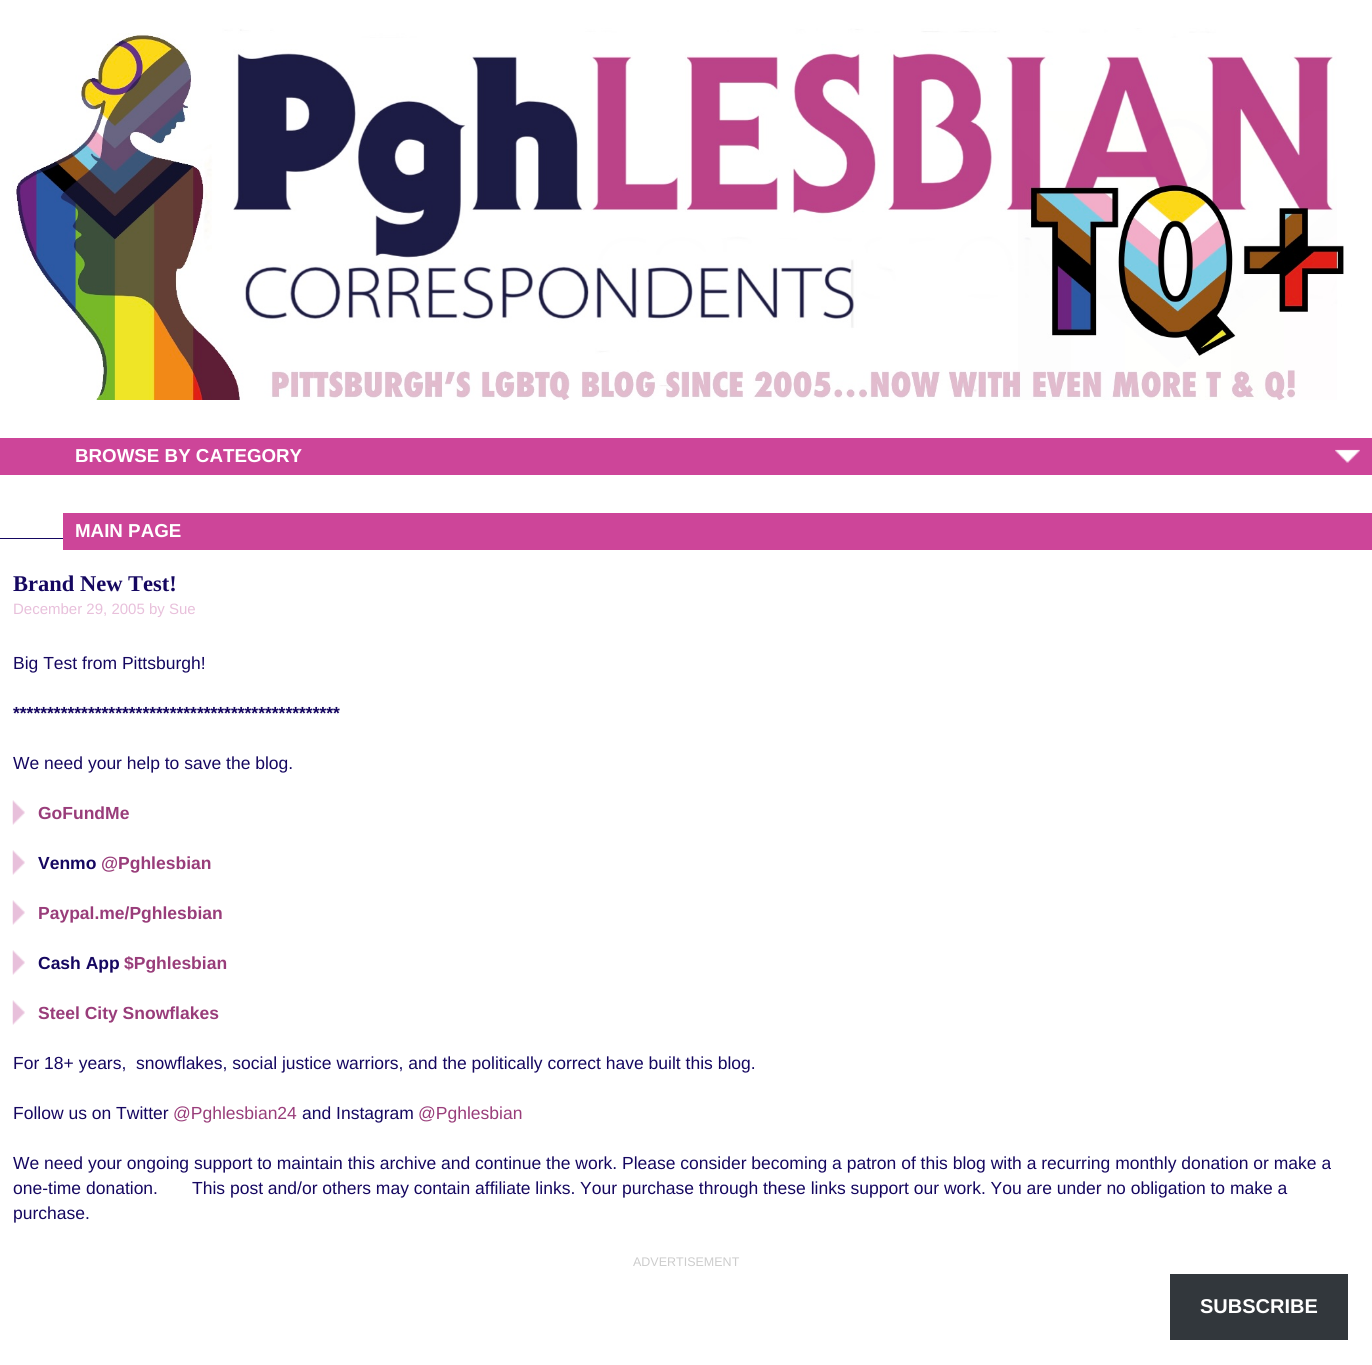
#include <cairo.h>
#include <math.h>
#include <stddef.h>


static void set_color(cairo_t *cr, unsigned color) {
    cairo_set_source_rgb(cr, (color >> 16) / 255.0, (color >> 8 & 255) / 255.0, (color & 255) / 255.0);
}

static void draw_text(cairo_t *cr, double x, double y, const char *s, const char *family, double size, int italic, int bold, unsigned color) {
    cairo_select_font_face(cr, family, italic ? CAIRO_FONT_SLANT_ITALIC : CAIRO_FONT_SLANT_NORMAL,
        bold ? CAIRO_FONT_WEIGHT_BOLD : CAIRO_FONT_WEIGHT_NORMAL);
    cairo_set_font_size(cr, size);
    set_color(cr, color);
    cairo_move_to(cr, x, y);
    cairo_show_text(cr, s);
}

static void fill_rect(cairo_t *cr, double x, double y, double w, double h, unsigned color) {
    set_color(cr, color);
    cairo_rectangle(cr, x, y, w, h);
    cairo_fill(cr);
}

static void draw_image(cairo_t *cr, const char *path, double x, double y, double w, double h) {
    cairo_surface_t *image = cairo_image_surface_create_from_png(path);
    cairo_save(cr);
    cairo_set_source_surface(cr, image, x, y);
    cairo_rectangle(cr, x, y, w, h);
    cairo_fill(cr);
    cairo_restore(cr);
    cairo_surface_destroy(image);
}

int main(void) {
    cairo_surface_t *surface = cairo_image_surface_create(CAIRO_FORMAT_RGB24, 1372, 1365);
    cairo_t *cr = cairo_create(surface);
    cairo_font_options_t *options = cairo_font_options_create();
    cairo_font_options_set_hint_metrics(options, CAIRO_HINT_METRICS_OFF);
    cairo_font_options_set_hint_style(options, CAIRO_HINT_STYLE_NONE);
    cairo_set_font_options(cr, options);
    cairo_set_miter_limit(cr, 4);
    set_color(cr, 0xFFFFFF);
    cairo_paint(cr);
    draw_image(cr, "assets/img1.png", 12, 28, 1332, 372);
    fill_rect(cr, 0, 438, 1372, 37, 0xCD4599);
    draw_image(cr, "assets/img2.png", 1335, 449, 25, 14);
    draw_text(cr, 75, 462, "BROWSE BY CATEGORY", "Liberation Sans", 18.75, 0, 1, 0xFFFFFF);
    fill_rect(cr, 63, 513, 1309, 37, 0xCD4599);
    draw_text(cr, 75, 537, "MAIN PAGE", "Liberation Sans", 18.75, 0, 1, 0xFFFFFF);
    fill_rect(cr, 0, 538, 63, 1, 0x150760);
    draw_text(cr, 13, 591, "Brand New Test!", "Liberation Serif", 22.5, 0, 1, 0x150760);
    draw_text(cr, 13, 614, "December 29, 2005 by Sue", "Liberation Sans", 15, 0, 0, 0xE8C0DB);
    draw_text(cr, 13, 669, "Big Test from Pittsburgh!", "Liberation Sans", 17.5, 0, 0, 0x150760);
    draw_text(cr, 13, 719, "************************************************", "Liberation Sans", 17.5, 0, 1, 0x150760);
    draw_text(cr, 13, 769, "We need your help to save the blog.", "Liberation Sans", 17.5, 0, 0, 0x150760);
    draw_image(cr, "assets/img3.png", 12, 800, 13, 25);
    draw_text(cr, 38, 819, "GoFundMe", "Liberation Sans", 17.5, 0, 1, 0x993D7A);
    draw_image(cr, "assets/img3.png", 12, 850, 13, 25);
    draw_text(cr, 38, 869, "Venmo", "Liberation Sans", 17.5, 0, 1, 0x150760);
    draw_text(cr, 101, 869, "@Pghlesbian", "Liberation Sans", 17.5, 0, 1, 0x993D7A);
    draw_image(cr, "assets/img3.png", 12, 900, 13, 25);
    draw_text(cr, 38, 919, "Paypal.me/Pghlesbian", "Liberation Sans", 17.5, 0, 1, 0x993D7A);
    draw_image(cr, "assets/img3.png", 12, 950, 13, 25);
    draw_text(cr, 38, 969, "Cash App", "Liberation Sans", 17.5, 0, 1, 0x150760);
    draw_text(cr, 124, 969, "$Pghlesbian", "Liberation Sans", 17.5, 0, 1, 0x993D7A);
    draw_image(cr, "assets/img3.png", 12, 1000, 13, 25);
    draw_text(cr, 38, 1019, "Steel City Snowflakes", "Liberation Sans", 17.5, 0, 1, 0x993D7A);
    draw_text(cr, 13, 1069, "For 18+ years,  snowflakes, social justice warriors, and the politically correct have built this blog.", "Liberation Sans", 17.5, 0, 0, 0x150760);
    draw_text(cr, 13, 1119, "Follow us on Twitter", "Liberation Sans", 17.5, 0, 0, 0x150760);
    draw_text(cr, 173, 1119, "@Pghlesbian24", "Liberation Sans", 17.5, 0, 0, 0x993D7A);
    draw_text(cr, 302, 1119, "and Instagram", "Liberation Sans", 17.5, 0, 0, 0x150760);
    draw_text(cr, 418, 1119, "@Pghlesbian", "Liberation Sans", 17.5, 0, 0, 0x993D7A);
    draw_text(cr, 13, 1169, "We need your ongoing support to maintain this archive and continue the work. Please consider becoming a patron of this blog with a recurring monthly donation or make a", "Liberation Sans", 17.5, 0, 0, 0x150760);
    draw_text(cr, 13, 1194, "one-time donation.", "Liberation Sans", 17.5, 0, 0, 0x150760);
    draw_text(cr, 192, 1194, "This post and/or others may contain affiliate links. Your purchase through these links support our work. You are under no obligation to make a", "Liberation Sans", 17.5, 0, 0, 0x150760);
    draw_text(cr, 13, 1219, "purchase.", "Liberation Sans", 17.5, 0, 0, 0x150760);
    draw_text(cr, 633, 1266, "ADVERTISEMENT", "Liberation Sans", 12.5, 0, 0, 0xCCCCCC);
    fill_rect(cr, 1170, 1274, 178, 66, 0x32373C);
    draw_text(cr, 1200, 1313, "SUBSCRIBE", "Liberation Sans", 20, 0, 1, 0xFFFFFF);
    cairo_surface_write_to_png(surface, "output.png");
    cairo_font_options_destroy(options);
    cairo_destroy(cr);
    cairo_surface_destroy(surface);
    return 0;
}
